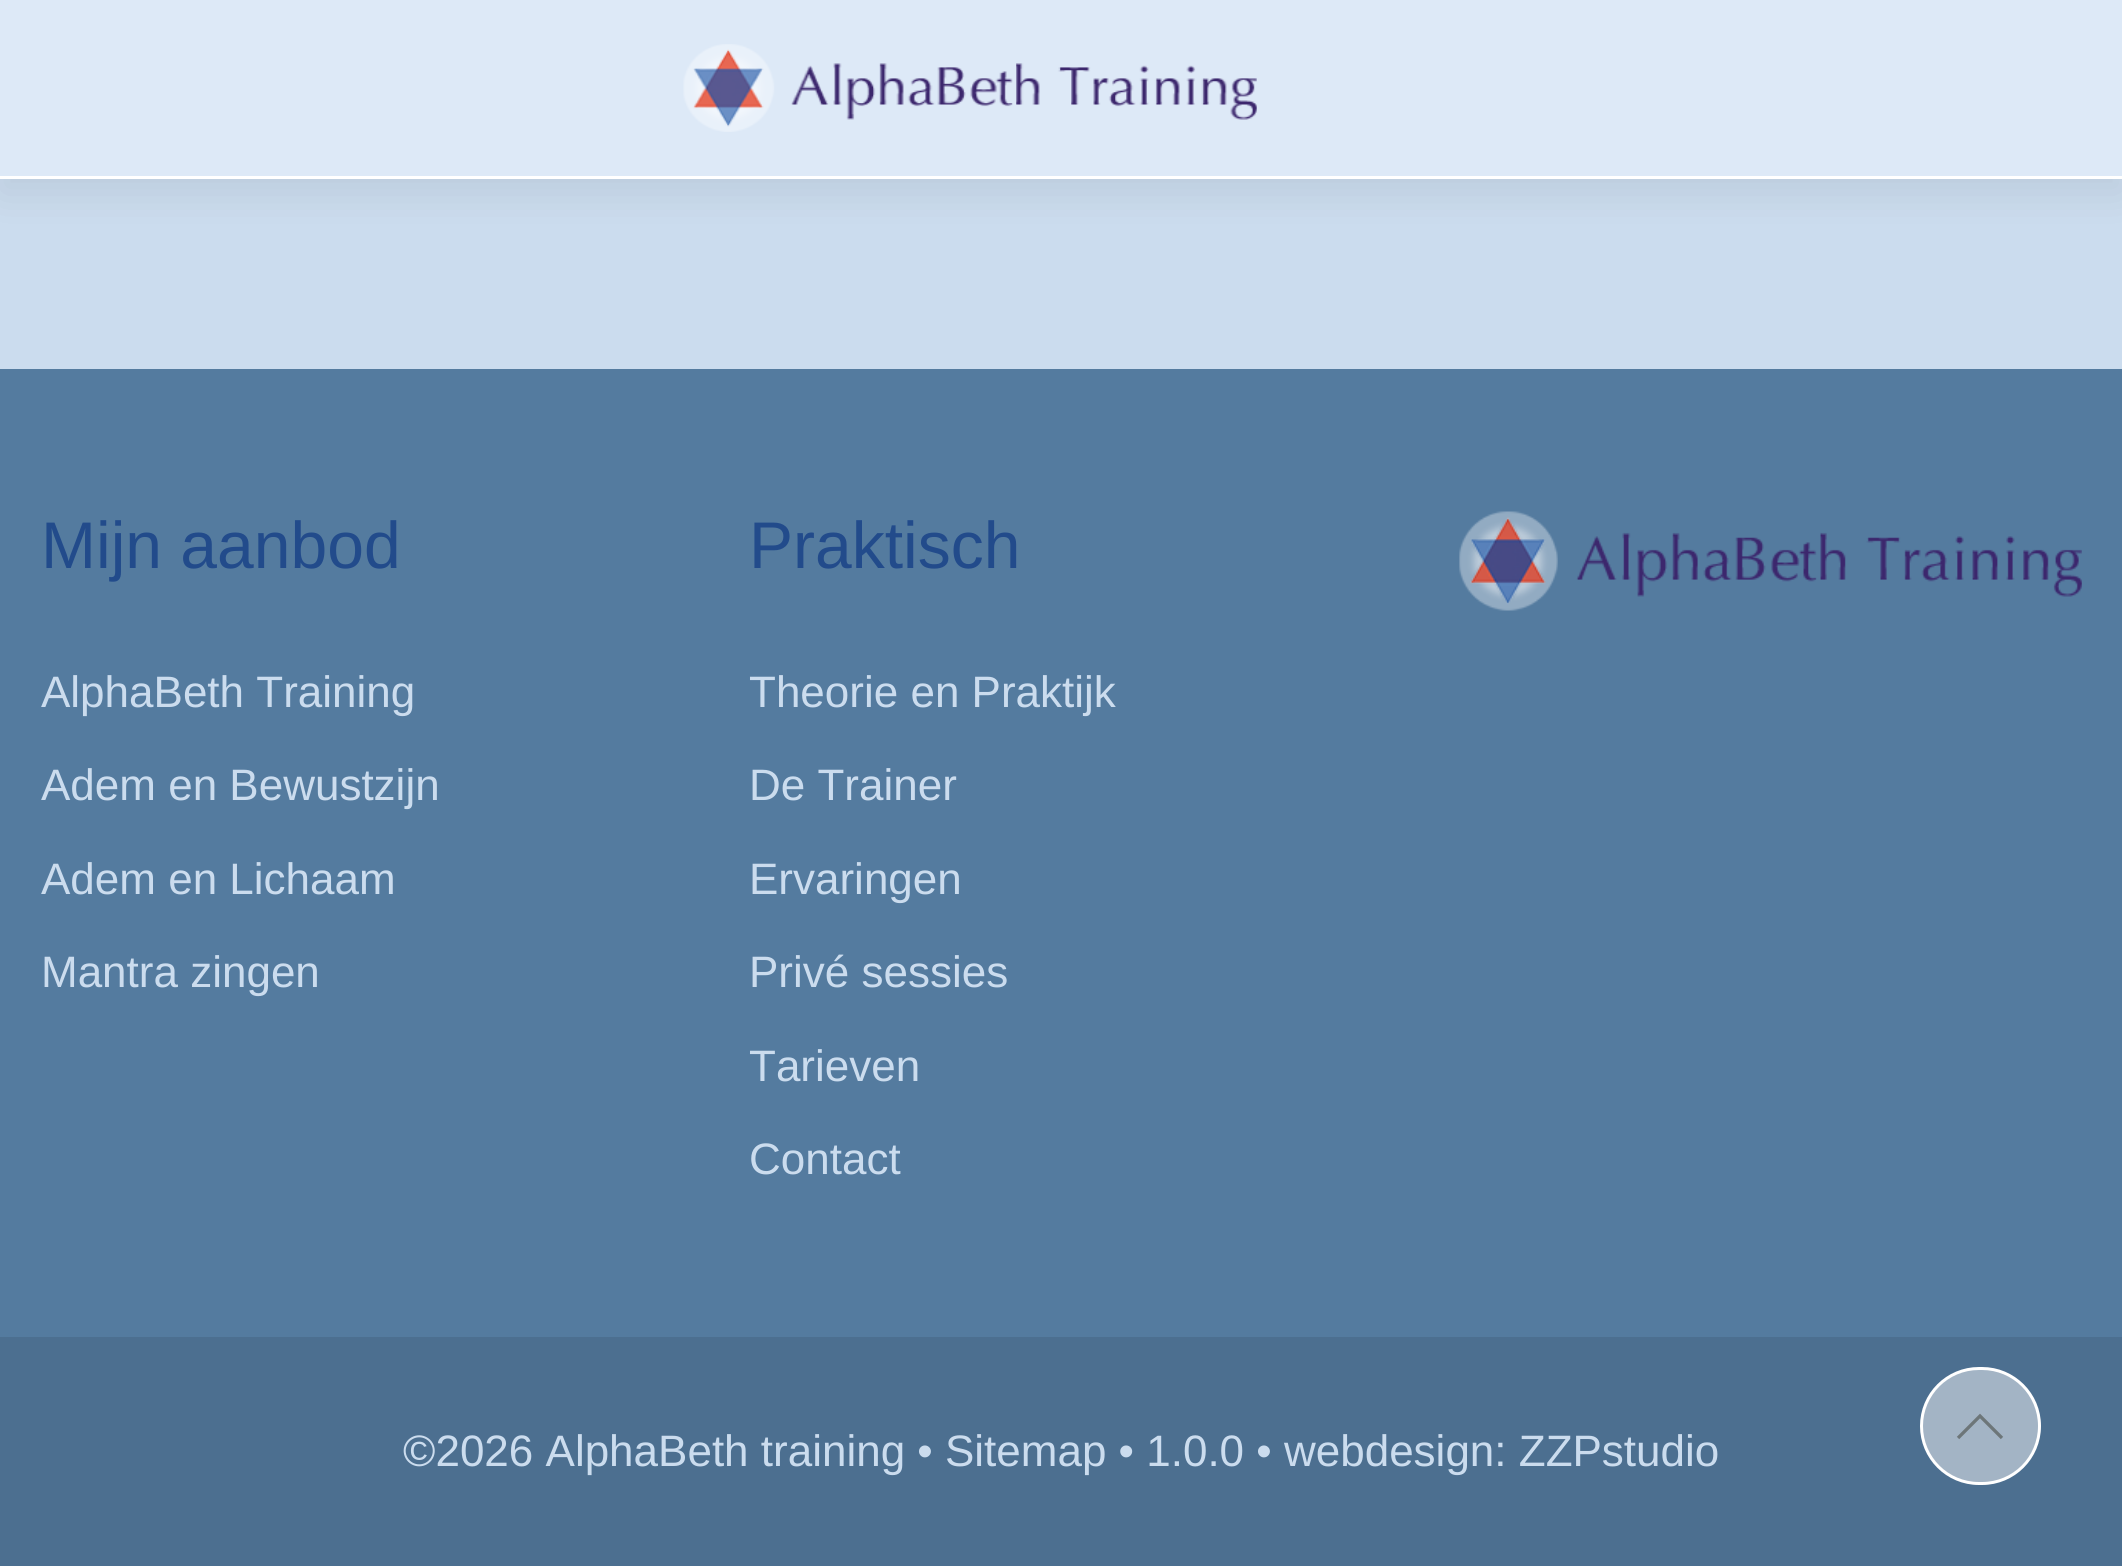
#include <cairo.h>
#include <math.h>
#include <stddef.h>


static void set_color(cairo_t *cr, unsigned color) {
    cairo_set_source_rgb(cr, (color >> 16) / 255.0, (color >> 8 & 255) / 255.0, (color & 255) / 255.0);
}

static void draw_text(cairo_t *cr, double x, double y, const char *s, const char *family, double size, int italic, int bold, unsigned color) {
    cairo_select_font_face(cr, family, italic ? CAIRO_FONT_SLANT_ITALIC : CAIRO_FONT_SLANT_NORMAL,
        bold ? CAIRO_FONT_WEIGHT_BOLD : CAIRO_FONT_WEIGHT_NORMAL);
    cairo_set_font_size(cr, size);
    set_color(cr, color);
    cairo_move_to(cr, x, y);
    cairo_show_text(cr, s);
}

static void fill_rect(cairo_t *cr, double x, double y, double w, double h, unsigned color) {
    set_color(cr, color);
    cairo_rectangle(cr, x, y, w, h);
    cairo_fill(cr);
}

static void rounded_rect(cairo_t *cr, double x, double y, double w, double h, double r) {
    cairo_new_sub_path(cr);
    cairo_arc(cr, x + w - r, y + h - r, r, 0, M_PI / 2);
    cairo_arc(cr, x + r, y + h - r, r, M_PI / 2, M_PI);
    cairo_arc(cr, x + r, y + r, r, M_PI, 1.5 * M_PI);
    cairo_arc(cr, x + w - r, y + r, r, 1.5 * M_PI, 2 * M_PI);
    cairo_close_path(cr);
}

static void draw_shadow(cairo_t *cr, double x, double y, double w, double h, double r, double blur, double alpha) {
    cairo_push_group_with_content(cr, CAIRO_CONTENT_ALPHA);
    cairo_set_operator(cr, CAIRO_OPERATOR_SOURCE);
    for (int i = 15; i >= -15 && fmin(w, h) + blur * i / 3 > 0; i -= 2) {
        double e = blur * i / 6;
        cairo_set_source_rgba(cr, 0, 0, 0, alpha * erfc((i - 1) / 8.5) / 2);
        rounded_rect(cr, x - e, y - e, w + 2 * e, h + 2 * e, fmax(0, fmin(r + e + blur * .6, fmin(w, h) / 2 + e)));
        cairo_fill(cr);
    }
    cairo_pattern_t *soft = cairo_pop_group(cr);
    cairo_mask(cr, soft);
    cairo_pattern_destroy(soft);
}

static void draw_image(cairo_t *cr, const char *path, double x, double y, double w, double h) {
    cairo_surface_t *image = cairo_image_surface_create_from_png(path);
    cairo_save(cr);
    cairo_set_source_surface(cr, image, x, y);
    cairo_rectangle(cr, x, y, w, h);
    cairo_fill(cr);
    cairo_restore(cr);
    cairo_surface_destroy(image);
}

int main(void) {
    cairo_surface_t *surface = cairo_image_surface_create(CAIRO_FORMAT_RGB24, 2122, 1566);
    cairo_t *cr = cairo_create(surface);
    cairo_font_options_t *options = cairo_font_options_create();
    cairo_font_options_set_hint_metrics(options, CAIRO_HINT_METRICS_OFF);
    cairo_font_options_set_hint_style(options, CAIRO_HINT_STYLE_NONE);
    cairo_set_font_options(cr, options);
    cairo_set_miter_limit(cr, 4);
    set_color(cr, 0xCBDCEE);
    cairo_paint(cr);
    set_color(cr, 0x000000);
    draw_shadow(cr, 0, 14, 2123, 179, 0, 20.5, 0.08);
    fill_rect(cr, 0, 0, 2122, 176, 0xDDE9F7);
    fill_rect(cr, 0, 176, 2122, 3, 0xFFFFFF);
    draw_image(cr, "assets/img1.png", 683, 44, 574, 88);
    fill_rect(cr, 0, 369, 2122, 968, 0x547B9F);
    draw_text(cr, 41, 568, "Mijn aanbod", "Liberation Sans", 66, 0, 0, 0x224B8B);
    draw_text(cr, 41, 707, "AlphaBeth Training", "Liberation Sans", 44, 0, 0, 0xCBDCEE);
    draw_text(cr, 41, 800, "Adem en Bewustzijn", "Liberation Sans", 44, 0, 0, 0xCBDCEE);
    draw_text(cr, 41, 894, "Adem en Lichaam", "Liberation Sans", 44, 0, 0, 0xCBDCEE);
    draw_text(cr, 41, 987, "Mantra zingen", "Liberation Sans", 44, 0, 0, 0xCBDCEE);
    draw_text(cr, 749, 568, "Praktisch", "Liberation Sans", 66, 0, 0, 0x224B8B);
    draw_text(cr, 749, 707, "Theorie en Praktijk", "Liberation Sans", 44, 0, 0, 0xCBDCEE);
    draw_text(cr, 749, 800, "De Trainer", "Liberation Sans", 44, 0, 0, 0xCBDCEE);
    draw_text(cr, 749, 894, "Ervaringen", "Liberation Sans", 44, 0, 0, 0xCBDCEE);
    draw_text(cr, 749, 987, "Privé sessies", "Liberation Sans", 44, 0, 0, 0xCBDCEE);
    draw_text(cr, 749, 1081, "Tarieven", "Liberation Sans", 44, 0, 0, 0xCBDCEE);
    draw_text(cr, 749, 1174, "Contact", "Liberation Sans", 44, 0, 0, 0xCBDCEE);
    draw_image(cr, "assets/img2.png", 1459, 511, 623, 100);
    fill_rect(cr, 0, 1337, 2122, 229, 0x4C6F90);
    draw_text(cr, 403, 1466, "©2026 AlphaBeth training • Sitemap • 1.0.0 • webdesign: ZZPstudio", "Liberation Sans", 44, 0, 0, 0xCBDCEE);
    cairo_set_source_rgba(cr, 0.98, 0.98, 0.98, 0.5);
    rounded_rect(cr, 1921.5, 1368.5, 118, 115, 57.5);
    cairo_fill_preserve(cr);
    set_color(cr, 0xFFFFFF);
    cairo_set_line_width(cr, 3);
    cairo_stroke(cr);
    cairo_new_path(cr);
    cairo_move_to(cr, 1958, 1438);
    cairo_line_to(cr, 1980, 1416);
    cairo_line_to(cr, 2002, 1438);
    set_color(cr, 0x6D7679);
    cairo_set_line_width(cr, 3.3);
    cairo_stroke(cr);
    cairo_surface_write_to_png(surface, "output.png");
    cairo_font_options_destroy(options);
    cairo_destroy(cr);
    cairo_surface_destroy(surface);
    return 0;
}
